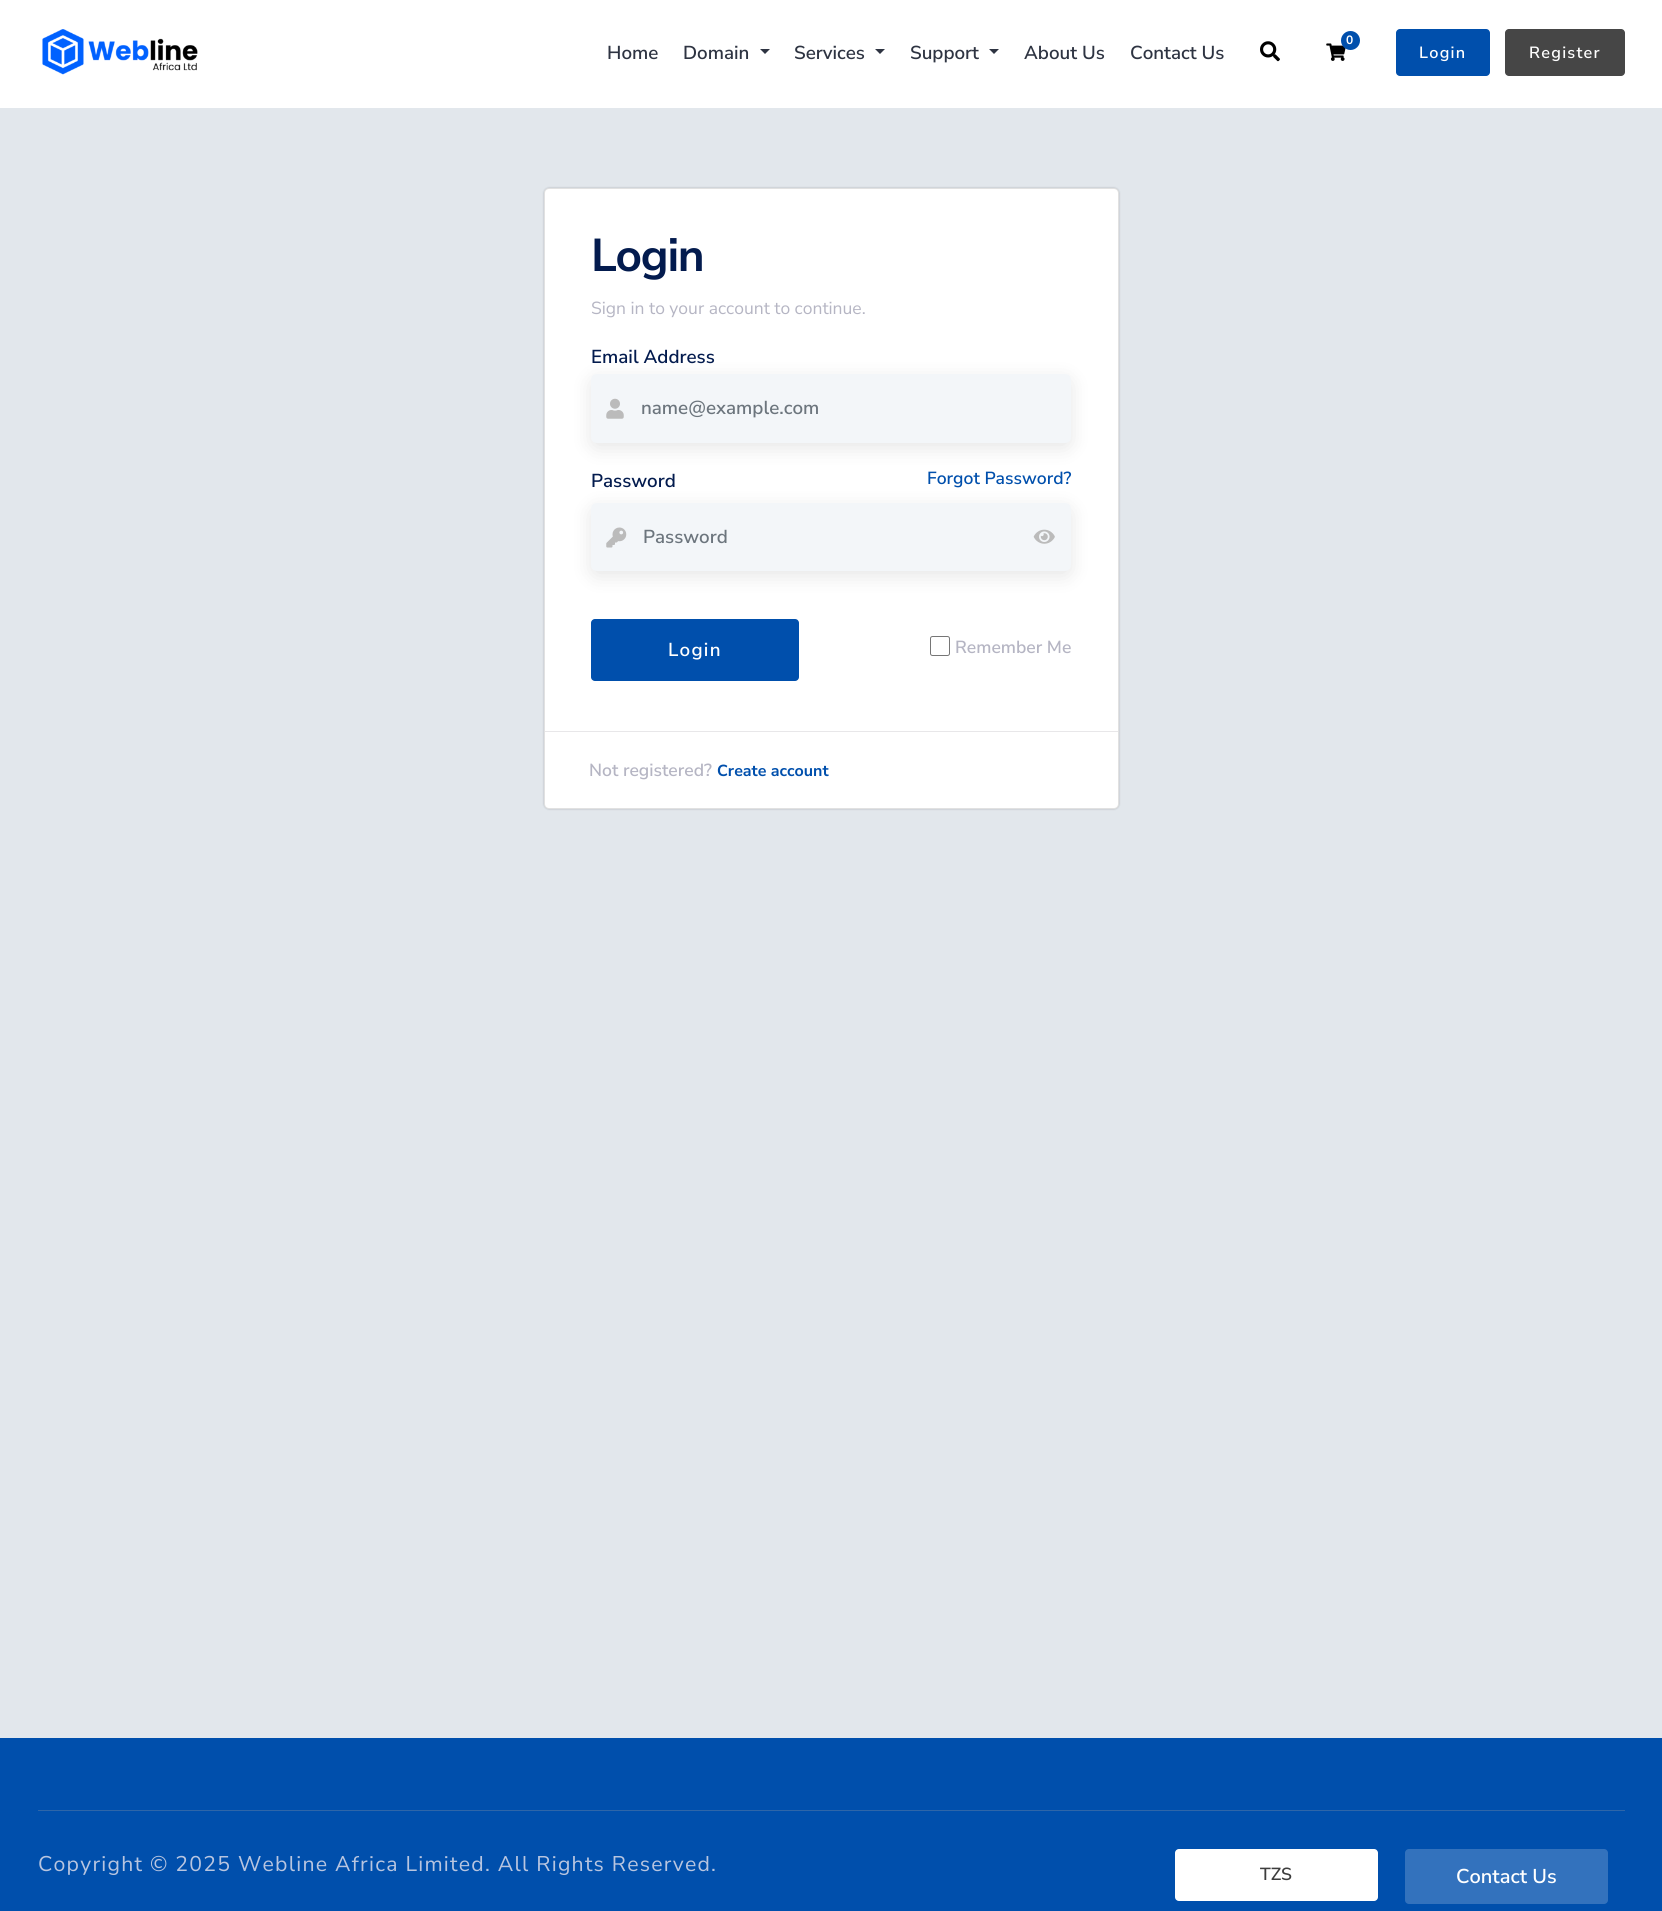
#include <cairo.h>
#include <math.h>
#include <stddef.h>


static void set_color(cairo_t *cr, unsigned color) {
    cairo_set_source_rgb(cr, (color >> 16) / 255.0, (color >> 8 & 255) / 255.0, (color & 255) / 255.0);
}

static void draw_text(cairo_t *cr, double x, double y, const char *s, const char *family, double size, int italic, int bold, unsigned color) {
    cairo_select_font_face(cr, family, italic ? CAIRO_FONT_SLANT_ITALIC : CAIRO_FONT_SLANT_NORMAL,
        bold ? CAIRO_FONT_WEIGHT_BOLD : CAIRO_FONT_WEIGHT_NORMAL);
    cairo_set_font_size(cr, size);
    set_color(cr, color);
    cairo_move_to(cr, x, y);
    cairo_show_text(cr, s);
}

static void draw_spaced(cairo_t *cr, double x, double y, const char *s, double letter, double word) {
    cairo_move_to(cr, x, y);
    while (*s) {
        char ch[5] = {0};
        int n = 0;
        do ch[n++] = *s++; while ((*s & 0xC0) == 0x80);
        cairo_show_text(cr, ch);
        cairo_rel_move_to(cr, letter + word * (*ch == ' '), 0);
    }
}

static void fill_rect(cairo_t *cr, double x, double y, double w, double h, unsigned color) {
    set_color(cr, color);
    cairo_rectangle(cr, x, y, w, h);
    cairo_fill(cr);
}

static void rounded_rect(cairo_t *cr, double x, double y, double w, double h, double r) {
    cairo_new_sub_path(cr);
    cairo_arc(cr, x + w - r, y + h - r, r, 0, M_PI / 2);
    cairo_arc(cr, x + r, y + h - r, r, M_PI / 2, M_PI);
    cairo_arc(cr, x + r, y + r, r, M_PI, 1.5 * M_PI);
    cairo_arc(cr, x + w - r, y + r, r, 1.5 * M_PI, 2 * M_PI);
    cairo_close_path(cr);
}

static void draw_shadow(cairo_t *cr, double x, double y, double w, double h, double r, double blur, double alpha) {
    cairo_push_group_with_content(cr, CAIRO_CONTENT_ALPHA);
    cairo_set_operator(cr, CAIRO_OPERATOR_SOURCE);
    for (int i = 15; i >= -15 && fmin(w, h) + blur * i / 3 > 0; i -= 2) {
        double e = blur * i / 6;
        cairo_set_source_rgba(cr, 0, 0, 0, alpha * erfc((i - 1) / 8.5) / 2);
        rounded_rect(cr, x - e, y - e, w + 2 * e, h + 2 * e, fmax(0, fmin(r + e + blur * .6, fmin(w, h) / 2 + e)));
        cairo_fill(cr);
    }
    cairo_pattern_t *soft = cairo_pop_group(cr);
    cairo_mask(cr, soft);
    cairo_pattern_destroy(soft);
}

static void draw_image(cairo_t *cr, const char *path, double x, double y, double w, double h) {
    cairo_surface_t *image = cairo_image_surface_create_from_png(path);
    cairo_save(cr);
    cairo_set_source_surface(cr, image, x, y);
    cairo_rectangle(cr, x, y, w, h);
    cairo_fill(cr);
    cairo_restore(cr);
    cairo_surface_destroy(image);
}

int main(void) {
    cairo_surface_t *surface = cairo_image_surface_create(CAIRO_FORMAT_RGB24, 1662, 1911);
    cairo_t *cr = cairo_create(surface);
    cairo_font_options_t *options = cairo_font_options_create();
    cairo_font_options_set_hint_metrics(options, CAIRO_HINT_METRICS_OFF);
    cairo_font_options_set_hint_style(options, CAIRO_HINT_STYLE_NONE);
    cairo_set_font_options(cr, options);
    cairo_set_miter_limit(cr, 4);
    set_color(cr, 0xFFFFFF);
    cairo_paint(cr);
    draw_image(cr, "assets/img1.png", 42, 29, 156, 46);
    draw_text(cr, 607, 59, "Home", "Nunito Sans SemiBold", 18.75, 0, 0, 0x2E3442);
    draw_text(cr, 683, 59, "Domain", "Nunito Sans SemiBold", 18.75, 0, 0, 0x2E3442);
    cairo_new_path(cr);
    cairo_move_to(cr, 760, 49);
    cairo_line_to(cr, 770, 49);
    cairo_line_to(cr, 765, 54);
    cairo_close_path(cr);
    cairo_fill(cr);
    draw_text(cr, 794, 59, "Services", "Nunito Sans SemiBold", 18.75, 0, 0, 0x2E3442);
    cairo_new_path(cr);
    cairo_move_to(cr, 875, 49);
    cairo_line_to(cr, 885, 49);
    cairo_line_to(cr, 880, 54);
    cairo_close_path(cr);
    cairo_fill(cr);
    draw_text(cr, 910, 59, "Support", "Nunito Sans SemiBold", 18.75, 0, 0, 0x2E3442);
    cairo_new_path(cr);
    cairo_move_to(cr, 989, 49);
    cairo_line_to(cr, 999, 49);
    cairo_line_to(cr, 994, 54);
    cairo_close_path(cr);
    cairo_fill(cr);
    draw_text(cr, 1024, 59, "About Us", "Nunito Sans SemiBold", 18.75, 0, 0, 0x2E3442);
    draw_text(cr, 1130, 59, "Contact Us", "Nunito Sans SemiBold", 18.75, 0, 0, 0x2E3442);
    draw_image(cr, "assets/img2.png", 1326, 43, 20, 18);
    set_color(cr, 0x004FAC);
    cairo_arc(cr, 1350.5, 40.5, 9.5, 0, 2 * M_PI);
    cairo_fill(cr);
    draw_text(cr, 1346, 44, "0", "Nunito Sans", 12, 0, 1, 0xFFFFFF);
    draw_image(cr, "assets/img3.png", 1260, 41, 20, 21);
    set_color(cr, 0x004FAC);
    rounded_rect(cr, 1396, 29, 94, 47, 4);
    cairo_fill(cr);
    cairo_select_font_face(cr, "Nunito Sans SemiBold", CAIRO_FONT_SLANT_NORMAL, CAIRO_FONT_WEIGHT_NORMAL);
    cairo_set_font_size(cr, 16.25);
    set_color(cr, 0xFFFFFF);
    draw_spaced(cr, 1419, 58, "Login", 1.25, 0);
    set_color(cr, 0x464646);
    rounded_rect(cr, 1505, 29, 120, 47, 4);
    cairo_fill(cr);
    set_color(cr, 0xFFFFFF);
    draw_spaced(cr, 1529, 58, "Register", 1.25, 0);
    fill_rect(cr, 0, 108, 1662, 1630, 0xE2E7EC);
    set_color(cr, 0x2A2E36);
    draw_shadow(cr, 544, 188, 575, 621, 5, 1, 0.29);
    set_color(cr, 0xFFFFFF);
    rounded_rect(cr, 544, 188, 575, 621, 5);
    cairo_fill(cr);
    rounded_rect(cr, 544.5, 188.5, 574, 620, 4.5);
    cairo_set_source_rgba(cr, 0, 0, 0, 0.12);
    cairo_set_line_width(cr, 1);
    cairo_stroke(cr);
    cairo_select_font_face(cr, "Nunito Sans", CAIRO_FONT_SLANT_NORMAL, CAIRO_FONT_WEIGHT_BOLD);
    cairo_set_font_size(cr, 46);
    set_color(cr, 0x031B4E);
    draw_spaced(cr, 591, 271, "Login", -1.25, 0);
    draw_text(cr, 591, 314, "Sign in to your account to continue.", "Nunito Sans", 17.5, 0, 0, 0xB5B5C3);
    draw_text(cr, 591, 363, "Email Address", "Nunito Sans SemiBold", 18.75, 0, 0, 0x031B4E);
    set_color(cr, 0x000000);
    draw_shadow(cr, 591, 379, 480, 69, 6, 9.5, 0.1);
    set_color(cr, 0xF3F6F9);
    cairo_new_path(cr);
    cairo_move_to(cr, 597, 374);
    cairo_line_to(cr, 628, 374);
    cairo_line_to(cr, 628, 443);
    cairo_line_to(cr, 597, 443);
    cairo_curve_to(cr, 593.5, 443, 591, 440.5, 591, 437);
    cairo_line_to(cr, 591, 380);
    cairo_curve_to(cr, 591, 376.5, 593.5, 374, 597, 374);
    cairo_close_path(cr);
    cairo_fill(cr);
    draw_image(cr, "assets/img4.png", 606, 398, 18, 21);
    cairo_new_path(cr);
    cairo_move_to(cr, 626, 374);
    cairo_line_to(cr, 1065, 374);
    cairo_curve_to(cr, 1068.5, 374, 1071, 376.5, 1071, 380);
    cairo_line_to(cr, 1071, 437);
    cairo_curve_to(cr, 1071, 440.5, 1068.5, 443, 1065, 443);
    cairo_line_to(cr, 626, 443);
    cairo_close_path(cr);
    cairo_fill(cr);
    draw_text(cr, 641, 414, "name@example.com", "Nunito Sans SemiBold", 18.75, 0, 0, 0x6C757D);
    draw_text(cr, 591, 487, "Password", "Nunito Sans SemiBold", 18.75, 0, 0, 0x031B4E);
    draw_text(cr, 927, 484, "Forgot Password?", "Nunito Sans SemiBold", 17.5, 0, 0, 0x004FAC);
    set_color(cr, 0x000000);
    draw_shadow(cr, 591, 508, 480, 68, 6, 9.5, 0.1);
    set_color(cr, 0xF3F6F9);
    cairo_new_path(cr);
    cairo_move_to(cr, 597, 503);
    cairo_line_to(cr, 630, 503);
    cairo_line_to(cr, 630, 571);
    cairo_line_to(cr, 597, 571);
    cairo_curve_to(cr, 593.5, 571, 591, 568.5, 591, 565);
    cairo_line_to(cr, 591, 509);
    cairo_curve_to(cr, 591, 505.5, 593.5, 503, 597, 503);
    cairo_close_path(cr);
    cairo_fill(cr);
    draw_image(cr, "assets/img5.png", 606, 527, 21, 21);
    fill_rect(cr, 630, 503, 389, 68, 0xF3F6F9);
    draw_text(cr, 643, 543, "Password", "Nunito Sans SemiBold", 18.75, 0, 0, 0x6C757D);
    set_color(cr, 0xF3F6F9);
    cairo_new_path(cr);
    cairo_move_to(cr, 1019, 503);
    cairo_line_to(cr, 1065, 503);
    cairo_curve_to(cr, 1068.5, 503, 1071, 505.5, 1071, 509);
    cairo_line_to(cr, 1071, 565);
    cairo_curve_to(cr, 1071, 568.5, 1068.5, 571, 1065, 571);
    cairo_line_to(cr, 1019, 571);
    cairo_close_path(cr);
    cairo_fill(cr);
    draw_image(cr, "assets/img6.png", 1033, 529, 22, 15);
    set_color(cr, 0x004FAC);
    rounded_rect(cr, 591, 619, 208, 62, 4);
    cairo_fill(cr);
    set_color(cr, 0xFFFFFF);
    draw_spaced(cr, 668, 656, "Login", 1.25, 0);
    rounded_rect(cr, 930.5, 636.5, 19, 19, 2);
    set_color(cr, 0x767676);
    cairo_stroke(cr);
    draw_text(cr, 955, 653, "Remember Me", "Nunito Sans SemiBold", 17.5, 0, 0, 0xB5B5C3);
    fill_rect(cr, 545, 731, 573, 1, 0xE8E7E9);
    draw_text(cr, 589, 776, "Not registered?", "Nunito Sans SemiBold", 17.5, 0, 0, 0xB5B5C3);
    draw_text(cr, 717, 776, "Create account", "Nunito Sans", 16, 0, 1, 0x004FAC);
    fill_rect(cr, 0, 1738, 1662, 173, 0x004FAC);
    fill_rect(cr, 38, 1810, 1587, 1, 0x2E66A9);
    cairo_select_font_face(cr, "Nunito Sans", CAIRO_FONT_SLANT_NORMAL, CAIRO_FONT_WEIGHT_NORMAL);
    cairo_set_font_size(cr, 21.25);
    set_color(cr, 0xB8C5E0);
    draw_spaced(cr, 38, 1871, "Copyright © 2025 Webline Africa Limited. All Rights Reserved.", 1.25, 0);
    set_color(cr, 0xFFFFFF);
    rounded_rect(cr, 1175, 1849, 203, 52, 4);
    cairo_fill(cr);
    draw_text(cr, 1260, 1880, "TZS", "Nunito Sans SemiBold", 17.5, 0, 0, 0x3D3D3D);
    set_color(cr, 0x3372BD);
    rounded_rect(cr, 1405, 1849, 203, 55, 4);
    cairo_fill(cr);
    draw_text(cr, 1456, 1883, "Contact Us", "Nunito Sans SemiBold", 20, 0, 0, 0xFFFFFF);
    cairo_surface_write_to_png(surface, "output.png");
    cairo_font_options_destroy(options);
    cairo_destroy(cr);
    cairo_surface_destroy(surface);
    return 0;
}
